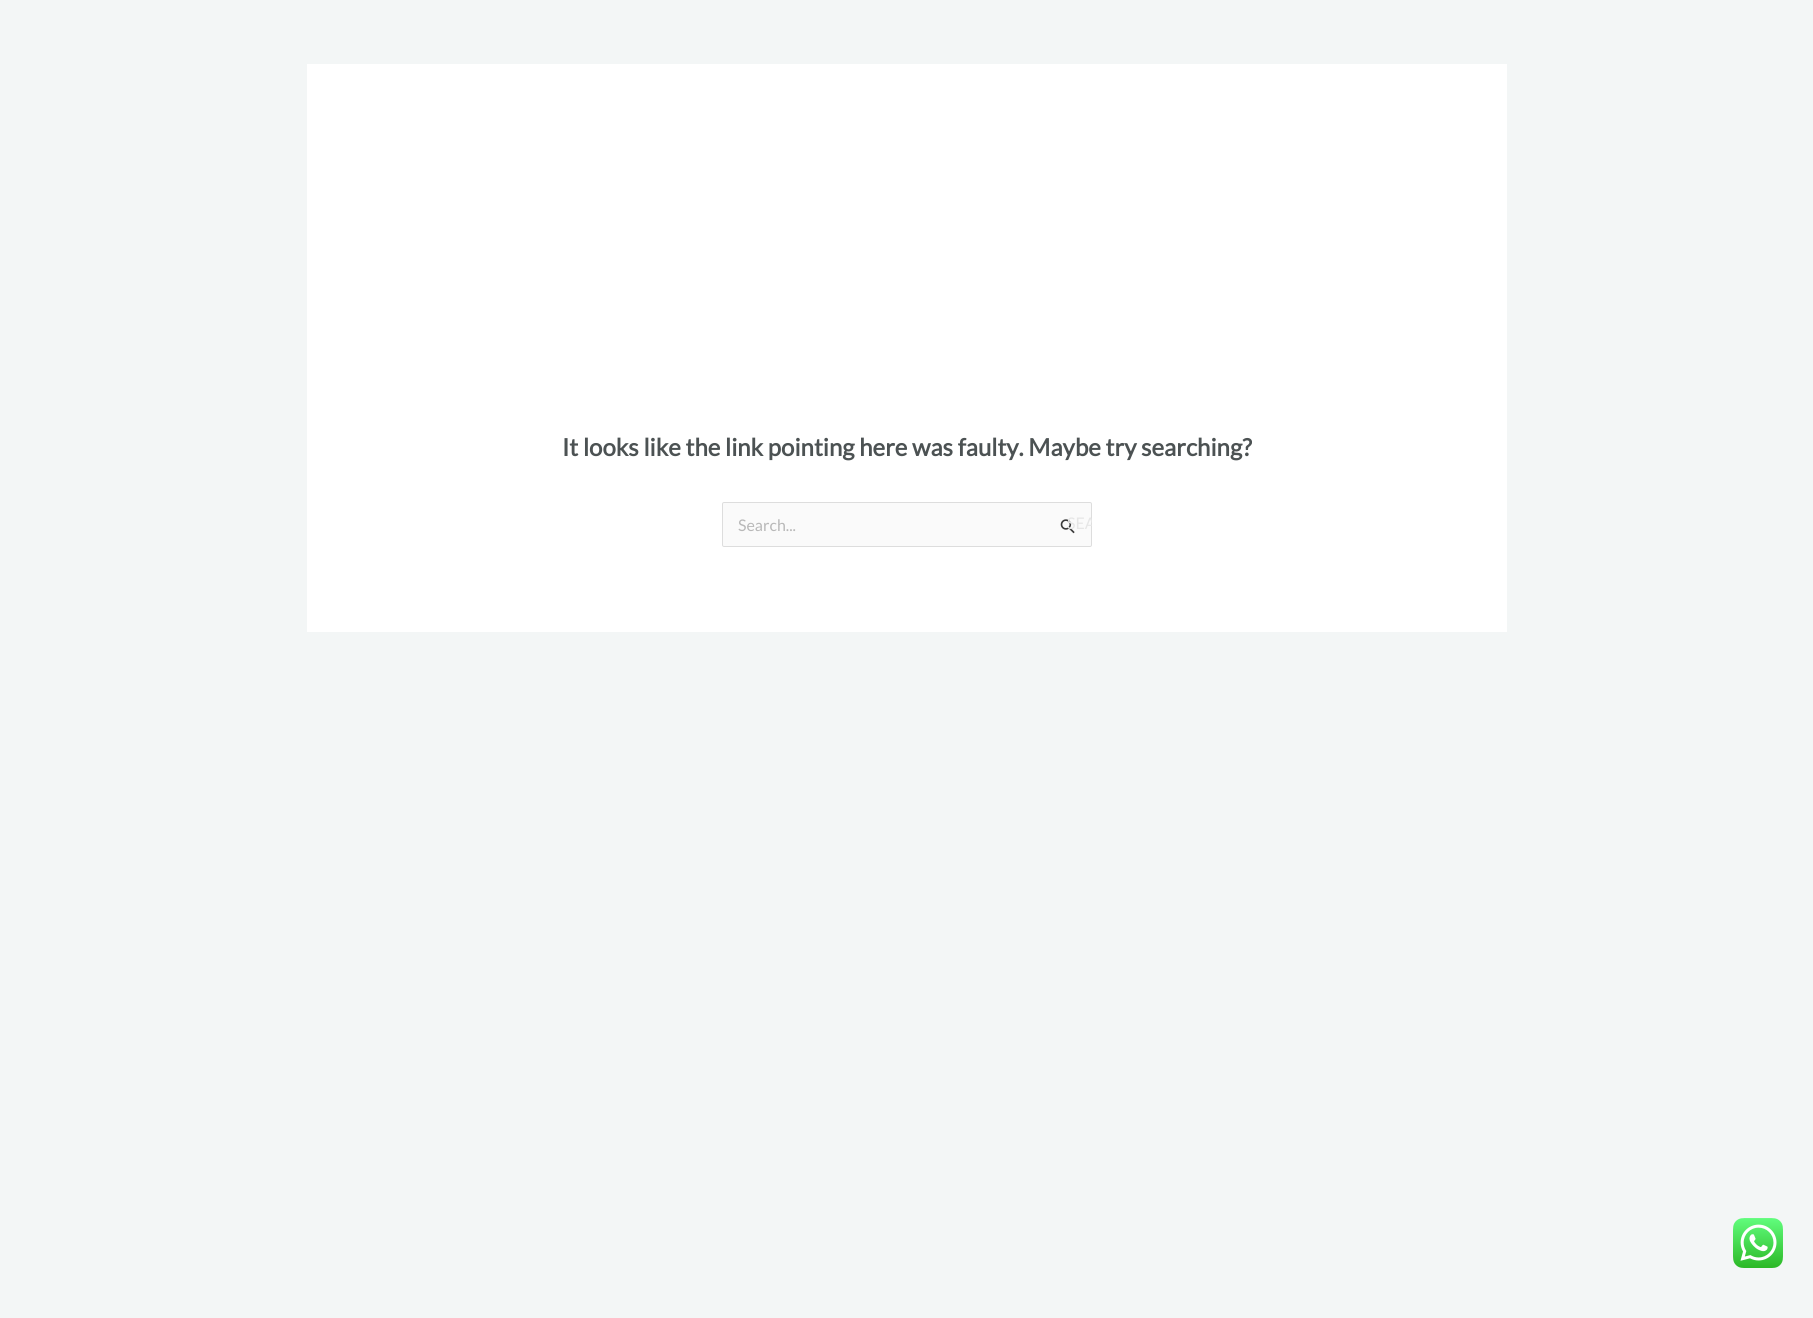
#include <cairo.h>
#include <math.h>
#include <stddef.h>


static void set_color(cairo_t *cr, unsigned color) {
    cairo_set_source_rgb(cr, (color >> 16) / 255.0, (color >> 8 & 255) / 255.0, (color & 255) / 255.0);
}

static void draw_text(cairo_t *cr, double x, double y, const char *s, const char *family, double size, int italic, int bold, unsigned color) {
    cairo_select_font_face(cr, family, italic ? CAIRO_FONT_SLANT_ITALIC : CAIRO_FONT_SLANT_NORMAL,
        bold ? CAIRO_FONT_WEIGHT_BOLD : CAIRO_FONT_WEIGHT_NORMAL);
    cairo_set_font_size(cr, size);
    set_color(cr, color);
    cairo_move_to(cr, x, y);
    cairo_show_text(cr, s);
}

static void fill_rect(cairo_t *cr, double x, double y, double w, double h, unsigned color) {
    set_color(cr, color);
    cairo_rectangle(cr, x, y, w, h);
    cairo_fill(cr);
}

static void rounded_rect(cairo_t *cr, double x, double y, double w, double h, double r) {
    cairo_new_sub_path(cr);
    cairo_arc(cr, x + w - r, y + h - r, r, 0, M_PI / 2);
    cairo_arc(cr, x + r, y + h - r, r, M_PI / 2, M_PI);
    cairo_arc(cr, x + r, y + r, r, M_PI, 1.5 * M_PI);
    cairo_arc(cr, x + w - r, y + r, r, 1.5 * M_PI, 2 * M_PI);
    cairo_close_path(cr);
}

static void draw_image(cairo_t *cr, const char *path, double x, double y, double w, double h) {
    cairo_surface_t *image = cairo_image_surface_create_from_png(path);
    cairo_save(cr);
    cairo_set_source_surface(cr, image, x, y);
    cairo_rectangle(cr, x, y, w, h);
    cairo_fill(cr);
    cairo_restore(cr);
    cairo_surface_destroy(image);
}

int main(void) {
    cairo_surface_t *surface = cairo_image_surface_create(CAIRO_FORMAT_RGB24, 1813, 1318);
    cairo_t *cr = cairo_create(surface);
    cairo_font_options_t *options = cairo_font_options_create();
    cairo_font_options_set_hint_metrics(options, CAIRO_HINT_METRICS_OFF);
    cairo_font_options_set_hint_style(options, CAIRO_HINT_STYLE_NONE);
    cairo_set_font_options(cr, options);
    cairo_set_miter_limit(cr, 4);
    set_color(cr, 0xF3F6F6);
    cairo_paint(cr);
    fill_rect(cr, 307, 64, 1200, 568, 0xFFFFFF);
    draw_text(cr, 562, 456, "It looks like the link pointing here was faulty. Maybe try searching?", "Lato", 24, 0, 1, 0x4C5253);
    set_color(cr, 0xFAFAFA);
    rounded_rect(cr, 722.5, 502.5, 369, 44, 1.5);
    cairo_fill_preserve(cr);
    set_color(cr, 0xDDDDDD);
    cairo_set_line_width(cr, 1);
    cairo_stroke(cr);
    draw_text(cr, 738, 531, "Search...", "Lato", 16, 0, 0, 0xB8B8B8);
    draw_image(cr, "assets/img1.png", 1060, 519, 15, 15);
    cairo_save(cr);
    rounded_rect(cr, 1047, 502, 45, 42, 2);
    cairo_clip(cr);
    draw_text(cr, 1067, 529, "SEA", "Lato", 16, 0, 0, 0xE6E6E6);
    cairo_restore(cr);
    draw_image(cr, "assets/img2.png", 1733, 1218, 50, 50);
    cairo_surface_write_to_png(surface, "output.png");
    cairo_font_options_destroy(options);
    cairo_destroy(cr);
    cairo_surface_destroy(surface);
    return 0;
}
